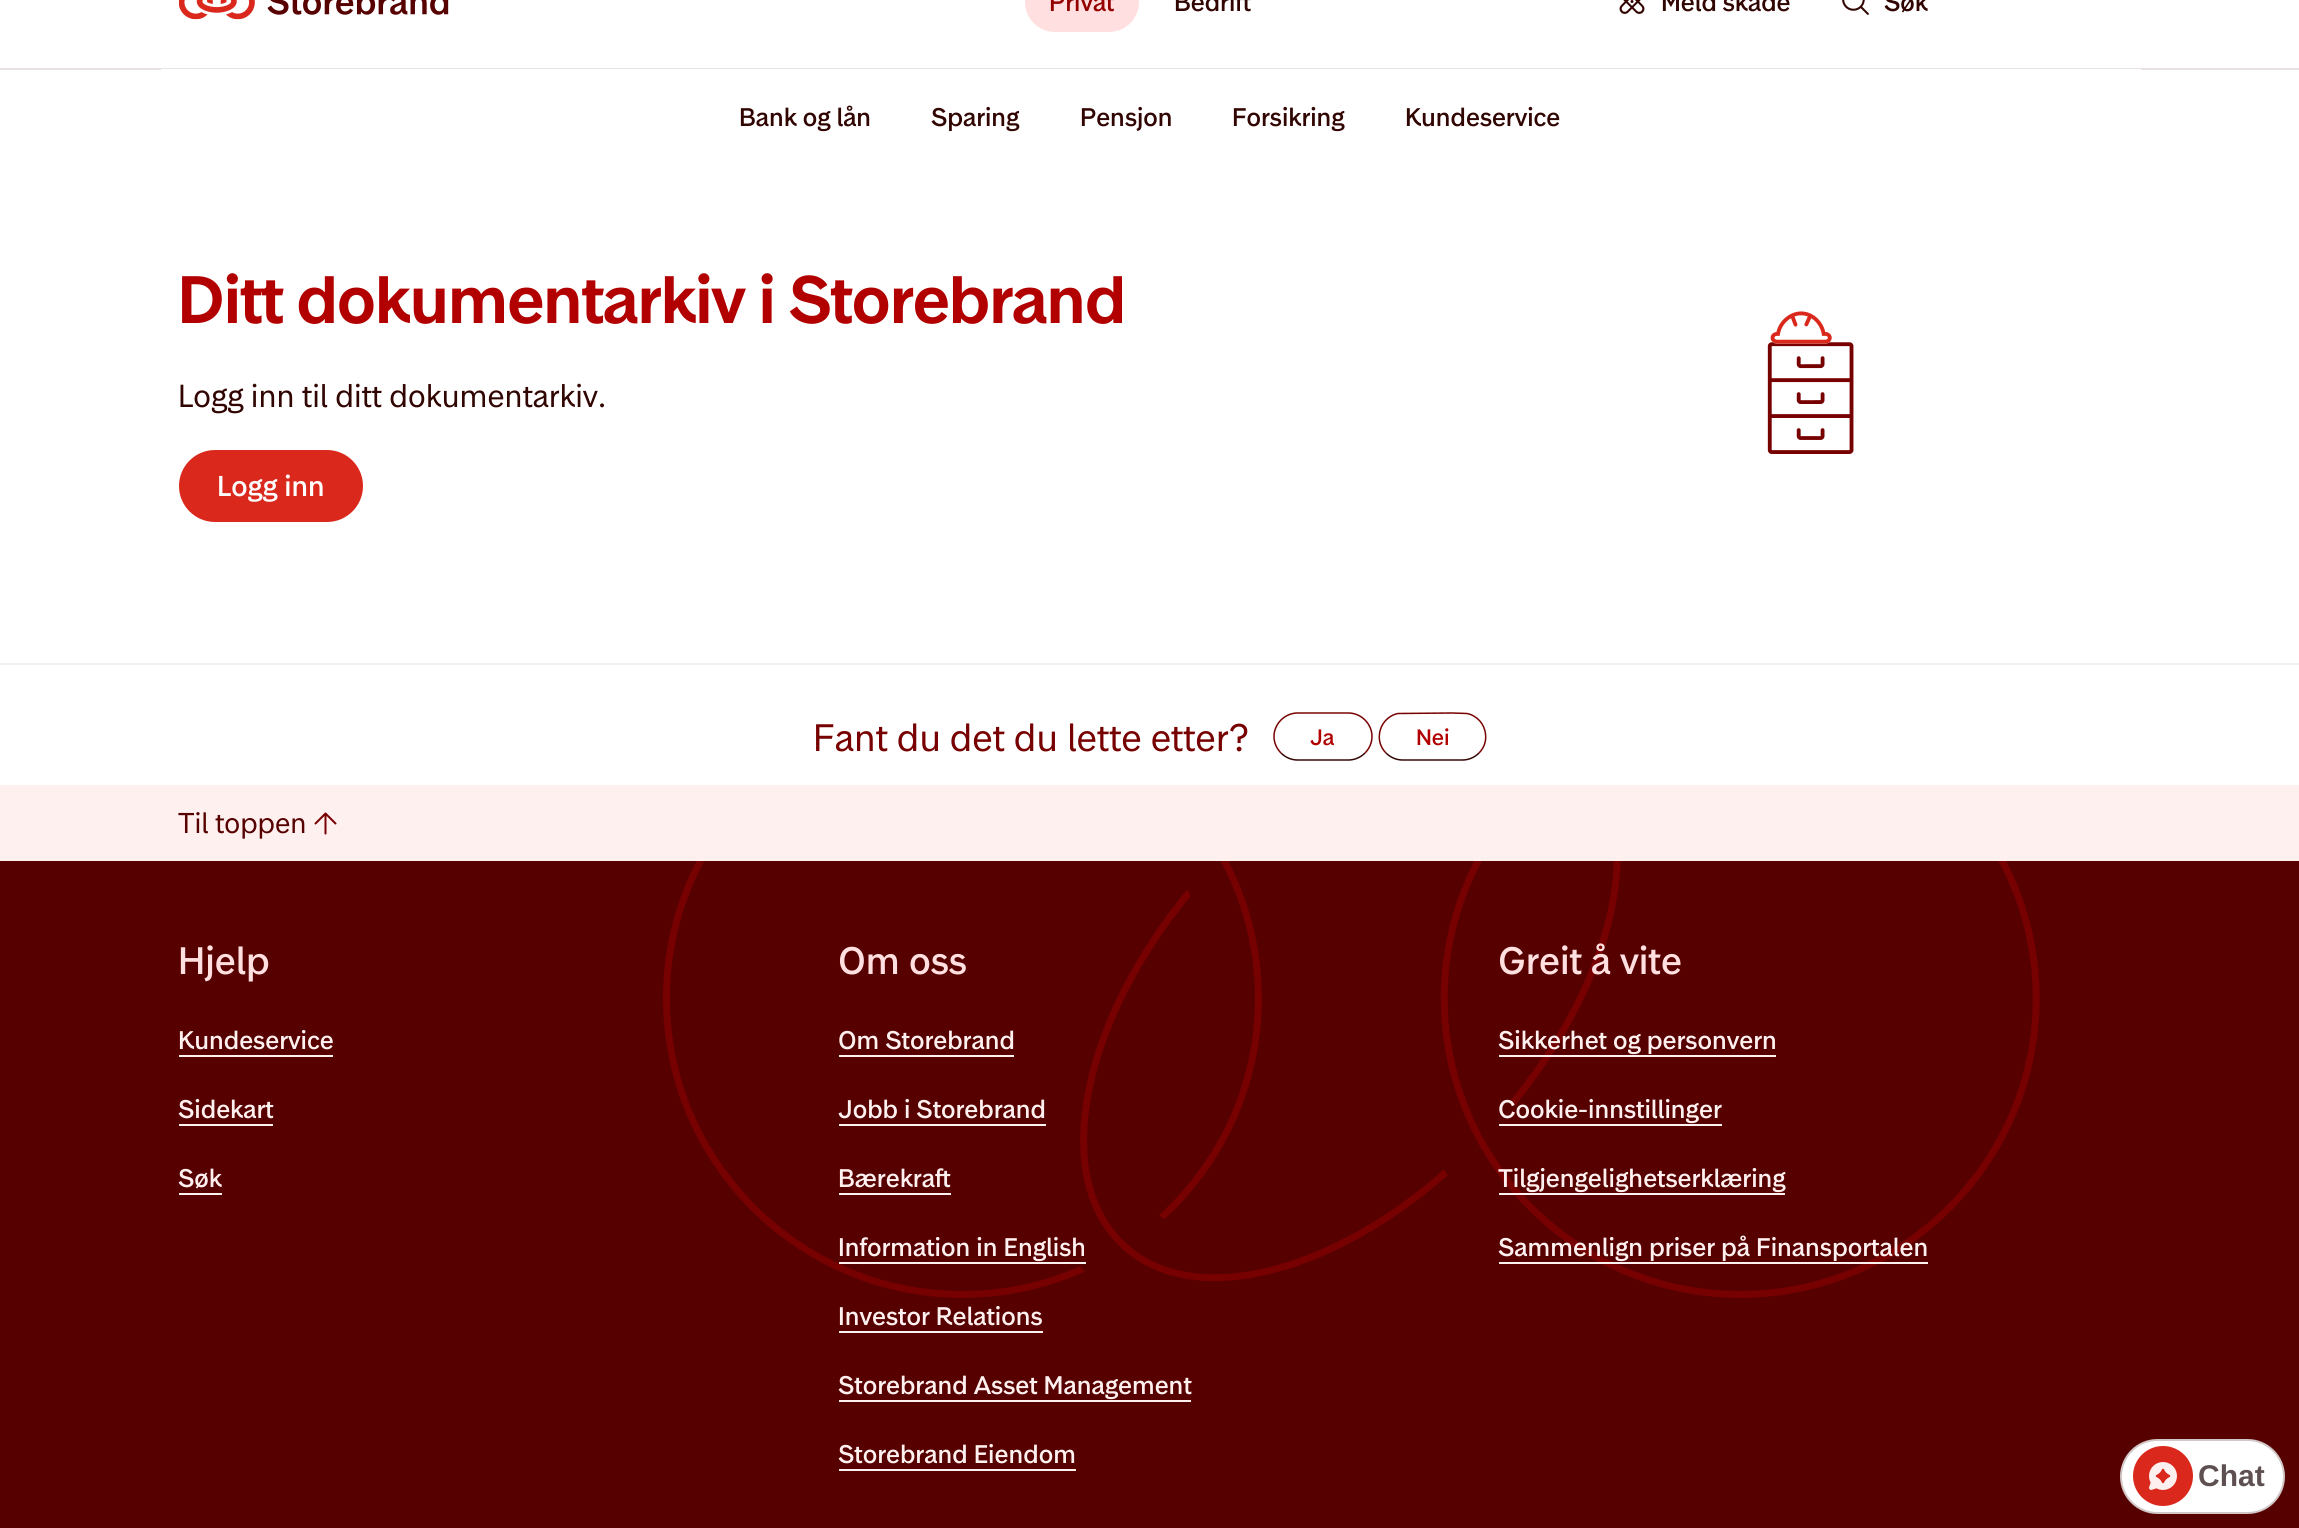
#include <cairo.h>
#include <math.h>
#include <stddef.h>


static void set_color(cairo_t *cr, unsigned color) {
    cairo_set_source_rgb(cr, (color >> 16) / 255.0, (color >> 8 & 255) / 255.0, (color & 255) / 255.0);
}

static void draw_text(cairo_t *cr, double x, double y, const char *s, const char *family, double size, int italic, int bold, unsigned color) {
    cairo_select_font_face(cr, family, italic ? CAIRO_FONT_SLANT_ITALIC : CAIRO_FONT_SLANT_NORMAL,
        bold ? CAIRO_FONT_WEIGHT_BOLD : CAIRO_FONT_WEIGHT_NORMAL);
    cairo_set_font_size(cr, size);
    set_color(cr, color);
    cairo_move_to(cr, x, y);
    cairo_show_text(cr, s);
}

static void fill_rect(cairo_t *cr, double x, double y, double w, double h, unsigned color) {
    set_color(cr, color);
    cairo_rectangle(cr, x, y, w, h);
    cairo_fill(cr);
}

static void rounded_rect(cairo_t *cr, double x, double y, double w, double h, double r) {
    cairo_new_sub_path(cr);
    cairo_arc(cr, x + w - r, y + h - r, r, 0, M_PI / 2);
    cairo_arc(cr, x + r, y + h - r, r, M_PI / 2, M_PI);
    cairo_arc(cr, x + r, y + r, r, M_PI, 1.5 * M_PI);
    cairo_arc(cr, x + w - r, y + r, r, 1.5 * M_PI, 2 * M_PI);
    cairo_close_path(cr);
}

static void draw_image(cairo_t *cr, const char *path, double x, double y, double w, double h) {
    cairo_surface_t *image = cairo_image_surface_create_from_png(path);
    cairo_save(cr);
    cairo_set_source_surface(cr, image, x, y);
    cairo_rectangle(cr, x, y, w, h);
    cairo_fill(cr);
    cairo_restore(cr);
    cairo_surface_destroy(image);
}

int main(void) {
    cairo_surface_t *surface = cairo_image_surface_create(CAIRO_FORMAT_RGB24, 2299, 1528);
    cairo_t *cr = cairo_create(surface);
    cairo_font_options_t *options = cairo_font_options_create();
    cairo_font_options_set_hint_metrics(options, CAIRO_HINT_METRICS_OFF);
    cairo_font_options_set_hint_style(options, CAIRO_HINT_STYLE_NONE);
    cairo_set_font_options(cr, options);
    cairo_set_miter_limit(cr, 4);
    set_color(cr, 0xFFFFFF);
    cairo_paint(cr);
    fill_rect(cr, 0, 68, 2299, 2, 0xE9E2E2);
    draw_image(cr, "assets/img1.png", 179, 0, 270, 20);
    set_color(cr, 0xFFDFDF);
    rounded_rect(cr, 1025, -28, 114, 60, 30);
    cairo_fill(cr);
    draw_text(cr, 1049, 11, "Privat", "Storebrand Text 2 Medium", 24, 0, 0, 0x940000);
    fill_rect(cr, 161, 69, 1980, 1, 0xFFFFFF);
    draw_text(cr, 739, 126, "Bank og lån", "Storebrand Text 2 Medium", 24, 0, 0, 0x310502);
    draw_text(cr, 931, 126, "Sparing", "Storebrand Text 2 Medium", 24, 0, 0, 0x310502);
    draw_text(cr, 1080, 126, "Pensjon", "Storebrand Text 2 Medium", 24, 0, 0, 0x310502);
    draw_text(cr, 1232, 126, "Forsikring", "Storebrand Text 2 Medium", 24, 0, 0, 0x310502);
    draw_text(cr, 1405, 126, "Kundeservice", "Storebrand Text 2 Medium", 24, 0, 0, 0x310502);
    draw_text(cr, 1174, 11, "Bedrift", "Storebrand Text 2 Medium", 24, 0, 0, 0x310502);
    draw_image(cr, "assets/img2.png", 1619, 0, 26, 14);
    draw_text(cr, 1661, 11, "Meld skade", "Storebrand Text 2 Medium", 24, 0, 0, 0x310502);
    draw_image(cr, "assets/img3.png", 1842, 0, 27, 15);
    draw_text(cr, 1884, 11, "Søk", "Storebrand Text 2 Medium", 24, 0, 0, 0x310502);
    draw_text(cr, 178, 323, "Ditt dokumentarkiv i Storebrand", "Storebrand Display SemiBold", 63, 0, 0, 0xB20000);
    draw_text(cr, 178, 407, "Logg inn til ditt dokumentarkiv.", "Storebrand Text", 30, 0, 0, 0x310502);
    set_color(cr, 0xDA291C);
    rounded_rect(cr, 180.5, 451.5, 181, 69, 34.5);
    cairo_fill_preserve(cr);
    cairo_set_line_width(cr, 3);
    cairo_stroke(cr);
    draw_text(cr, 217, 496, "Logg inn", "Storebrand Text Medium", 27, 0, 0, 0xFFFFFF);
    draw_image(cr, "assets/img4.png", 1767, 311, 87, 143);
    fill_rect(cr, 0, 663, 2299, 2, 0xF2F2F2);
    draw_text(cr, 813, 751, "Fant du det du lette etter?", "Storebrand Text", 36, 0, 0, 0x770000);
    cairo_new_path(cr);
    cairo_move_to(cr, 1365, 753);
    cairo_curve_to(cr, 1360.5, 757.5, 1354.5, 760, 1348.5, 760);
    cairo_line_to(cr, 1297.5, 760);
    cairo_curve_to(cr, 1291.5, 760, 1285.5, 757.5, 1281, 753);
    set_color(cr, 0x310502);
    cairo_set_line_width(cr, 1.5);
    cairo_stroke(cr);
    cairo_new_path(cr);
    cairo_move_to(cr, 1281, 753);
    cairo_curve_to(cr, 1276.5, 748.5, 1274, 742.5, 1274, 736.5);
    cairo_curve_to(cr, 1274, 730.5, 1276.5, 724.5, 1281, 720);
    cairo_curve_to(cr, 1285.5, 715.5, 1291.5, 713, 1297.5, 713);
    cairo_line_to(cr, 1348.5, 713);
    cairo_curve_to(cr, 1354.5, 713, 1360.5, 715.5, 1365, 720);
    cairo_curve_to(cr, 1369.5, 724.5, 1372, 730.5, 1372, 736.5);
    cairo_curve_to(cr, 1372, 742.5, 1369.5, 748.5, 1365, 753);
    set_color(cr, 0x770000);
    cairo_stroke(cr);
    draw_text(cr, 1310, 745, "Ja", "Storebrand Text 2 Medium", 21, 0, 0, 0xB20000);
    cairo_new_path(cr);
    cairo_move_to(cr, 1479, 753);
    cairo_curve_to(cr, 1474.5, 757.5, 1468.5, 760, 1462.5, 760);
    cairo_line_to(cr, 1402.5, 760);
    cairo_curve_to(cr, 1396.5, 760, 1390.5, 757.5, 1386, 753);
    set_color(cr, 0x310502);
    cairo_stroke(cr);
    cairo_new_path(cr);
    cairo_move_to(cr, 1386, 753);
    cairo_curve_to(cr, 1381, 748, 1378.5, 741, 1379.5, 734);
    cairo_curve_to(cr, 1380.5, 724, 1388, 715.5, 1398, 713.5);
    cairo_line_to(cr, 1452.5, 713);
    cairo_line_to(cr, 1467, 713.5);
    cairo_curve_to(cr, 1477, 715.5, 1484.5, 724, 1485.5, 734);
    cairo_curve_to(cr, 1486.5, 741, 1484, 748, 1479, 753);
    set_color(cr, 0x770000);
    cairo_stroke(cr);
    draw_text(cr, 1416, 745, "Nei", "Storebrand Text 2 Medium", 21, 0, 0, 0xB20000);
    fill_rect(cr, 0, 785, 2299, 76, 0xFFF0F0);
    draw_text(cr, 178, 833, "Til toppen", "Storebrand Text", 27, 0, 0, 0x560000);
    draw_image(cr, "assets/img5.png", 314, 812, 23, 23);
    fill_rect(cr, 0, 861, 2299, 667, 0x560000);
    draw_image(cr, "assets/img6.png", 663, 861, 1377, 437);
    draw_text(cr, 178, 974, "Hjelp", "Storebrand Text Medium", 36, 0, 0, 0xFFDFDF);
    draw_text(cr, 178, 1049, "Kundeservice", "Storebrand Text Medium", 24, 0, 0, 0xFFF0F0);
    fill_rect(cr, 179, 1055, 154, 2, 0xFFF0F0);
    draw_text(cr, 178, 1118, "Sidekart", "Storebrand Text Medium", 24, 0, 0, 0xFFF0F0);
    fill_rect(cr, 179, 1124, 94, 2, 0xFFF0F0);
    draw_text(cr, 178, 1187, "Søk", "Storebrand Text Medium", 24, 0, 0, 0xFFF0F0);
    fill_rect(cr, 179, 1193, 43, 2, 0xFFF0F0);
    draw_text(cr, 838, 974, "Om oss", "Storebrand Text Medium", 36, 0, 0, 0xFFDFDF);
    draw_text(cr, 838, 1049, "Om Storebrand", "Storebrand Text Medium", 24, 0, 0, 0xFFF0F0);
    fill_rect(cr, 839, 1055, 175, 2, 0xFFF0F0);
    draw_text(cr, 838, 1118, "Jobb i Storebrand", "Storebrand Text Medium", 24, 0, 0, 0xFFF0F0);
    fill_rect(cr, 839, 1124, 207, 2, 0xFFF0F0);
    draw_text(cr, 838, 1187, "Bærekraft", "Storebrand Text Medium", 24, 0, 0, 0xFFF0F0);
    fill_rect(cr, 839, 1193, 112, 2, 0xFFF0F0);
    draw_text(cr, 838, 1256, "Information in English", "Storebrand Text Medium", 24, 0, 0, 0xFFF0F0);
    fill_rect(cr, 839, 1262, 247, 2, 0xFFF0F0);
    draw_text(cr, 838, 1325, "Investor Relations", "Storebrand Text Medium", 24, 0, 0, 0xFFF0F0);
    fill_rect(cr, 839, 1331, 204, 2, 0xFFF0F0);
    draw_text(cr, 838, 1394, "Storebrand Asset Management", "Storebrand Text Medium", 24, 0, 0, 0xFFF0F0);
    fill_rect(cr, 839, 1400, 352, 2, 0xFFF0F0);
    draw_text(cr, 838, 1463, "Storebrand Eiendom", "Storebrand Text Medium", 24, 0, 0, 0xFFF0F0);
    fill_rect(cr, 839, 1469, 237, 2, 0xFFF0F0);
    draw_text(cr, 1498, 974, "Greit å vite", "Storebrand Text Medium", 36, 0, 0, 0xFFDFDF);
    draw_text(cr, 1498, 1049, "Sikkerhet og personvern", "Storebrand Text Medium", 24, 0, 0, 0xFFF0F0);
    fill_rect(cr, 1499, 1055, 277, 2, 0xFFF0F0);
    draw_text(cr, 1498, 1118, "Cookie-innstillinger", "Storebrand Text Medium", 24, 0, 0, 0xFFF0F0);
    fill_rect(cr, 1499, 1124, 223, 2, 0xFFF0F0);
    draw_text(cr, 1498, 1187, "Tilgjengelighetserklæring", "Storebrand Text Medium", 24, 0, 0, 0xFFF0F0);
    fill_rect(cr, 1499, 1193, 286, 2, 0xFFF0F0);
    draw_text(cr, 1498, 1256, "Sammenlign priser på Finansportalen", "Storebrand Text Medium", 24, 0, 0, 0xFFF0F0);
    fill_rect(cr, 1499, 1262, 429, 2, 0xFFF0F0);
    set_color(cr, 0xFFFFFF);
    rounded_rect(cr, 2121, 1440, 163, 73, 36.5);
    cairo_fill_preserve(cr);
    set_color(cr, 0xD1C7C7);
    cairo_set_line_width(cr, 2);
    cairo_stroke(cr);
    draw_image(cr, "assets/img7.png", 2133, 1446, 60, 60);
    draw_text(cr, 2198, 1486, "Chat", "Liberation Sans", 30, 0, 1, 0x5E5050);
    cairo_surface_write_to_png(surface, "output.png");
    cairo_font_options_destroy(options);
    cairo_destroy(cr);
    cairo_surface_destroy(surface);
    return 0;
}
